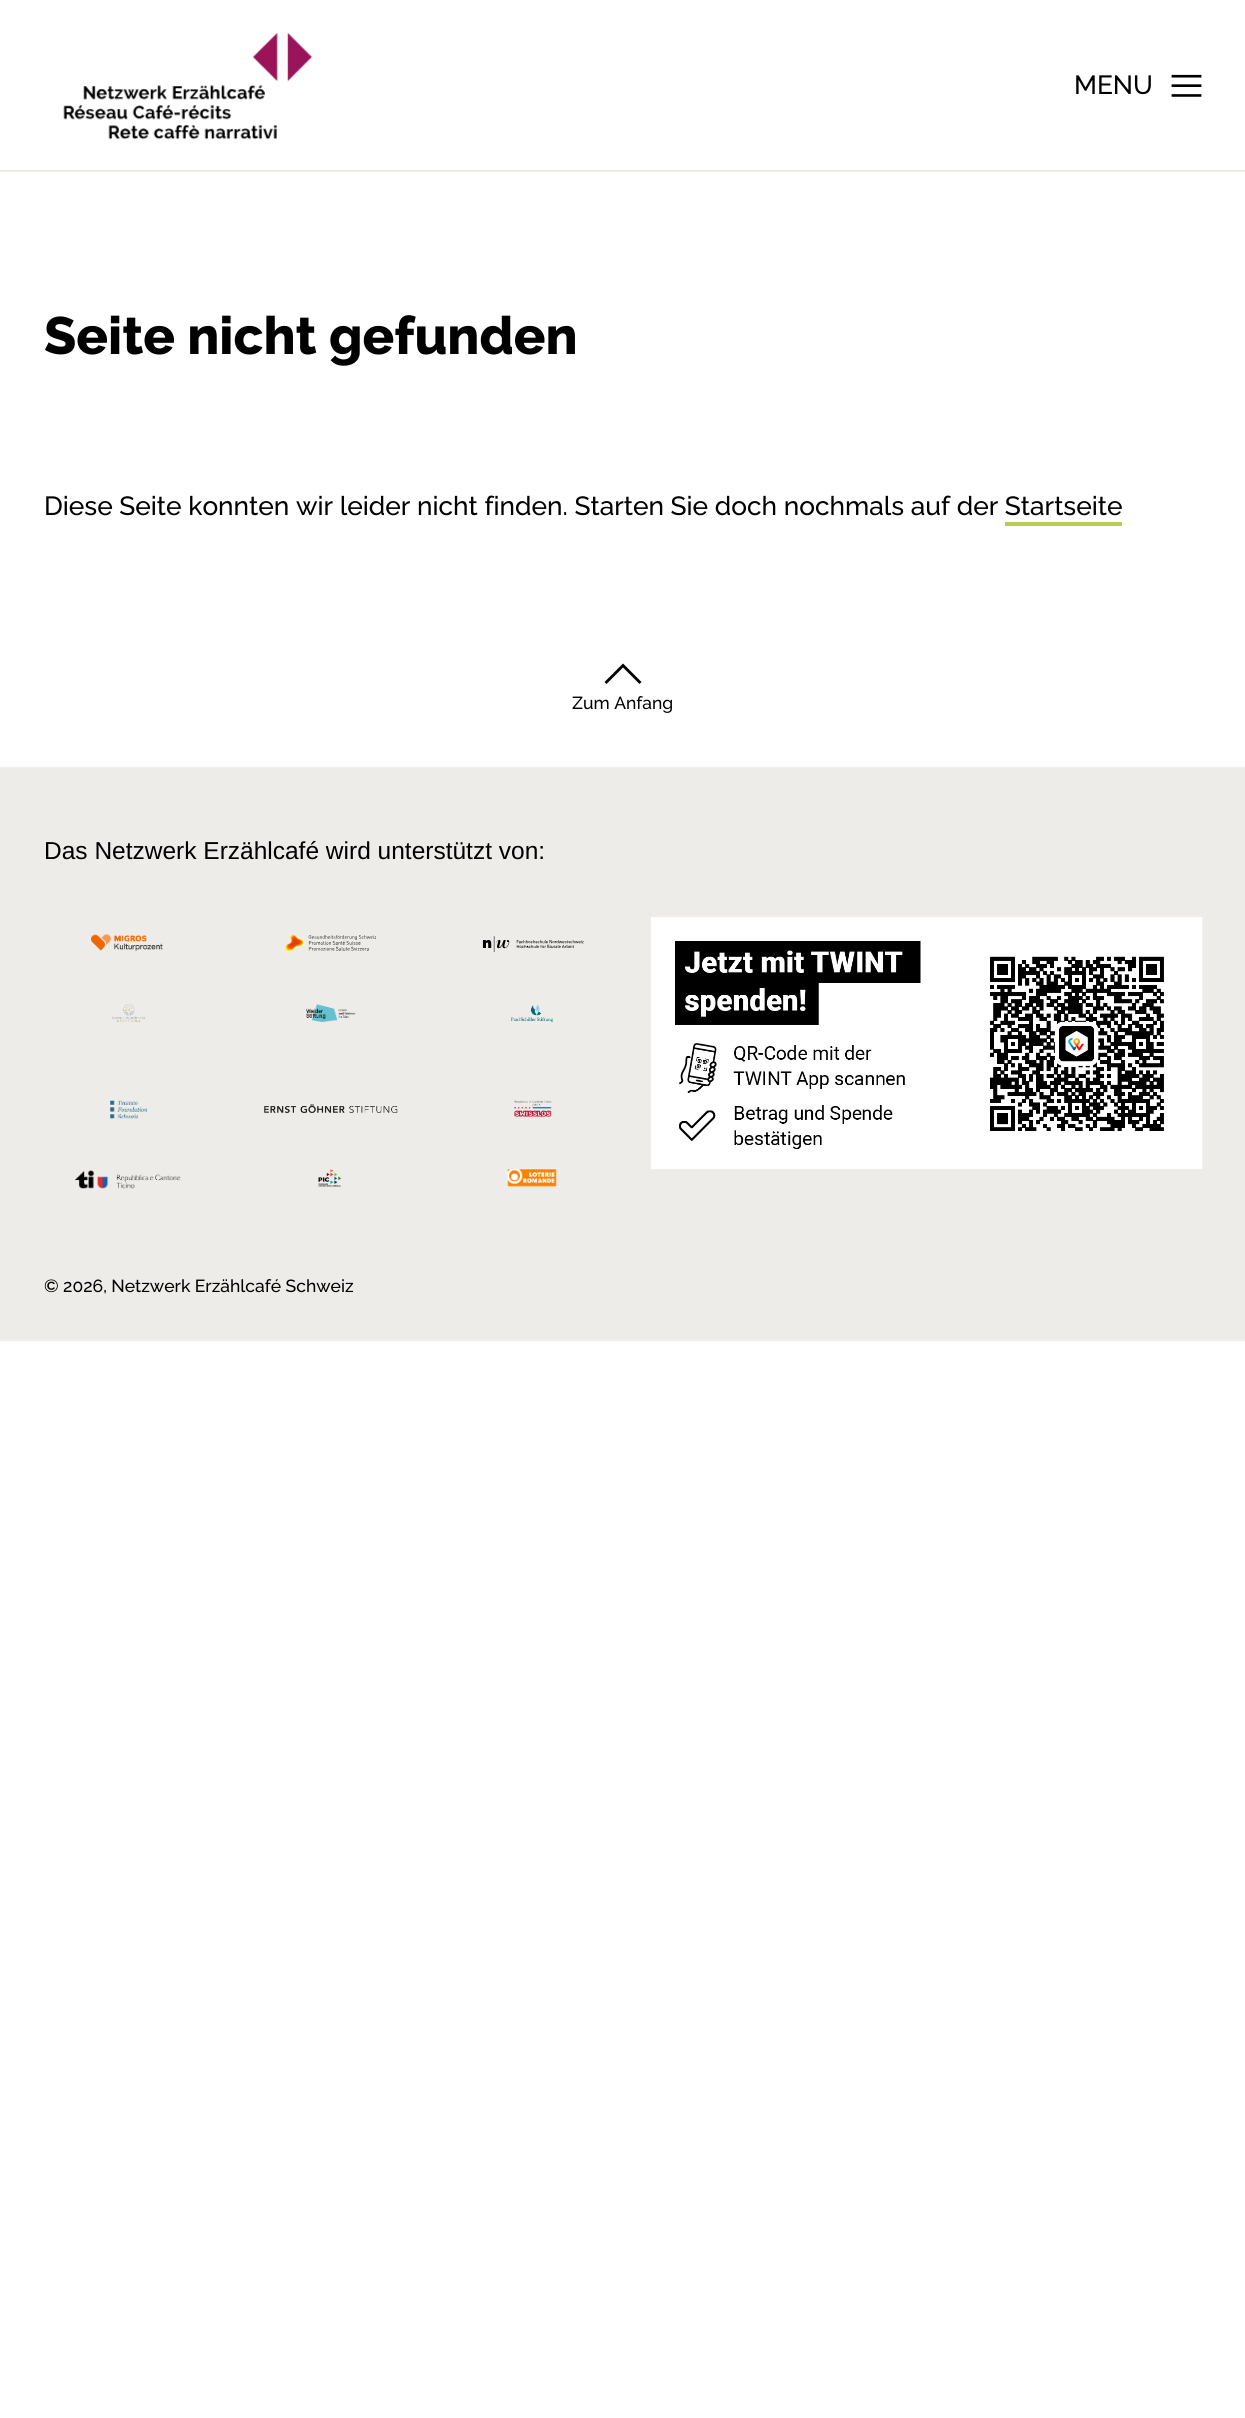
#include <cairo.h>
#include <math.h>
#include <stddef.h>


static void set_color(cairo_t *cr, unsigned color) {
    cairo_set_source_rgb(cr, (color >> 16) / 255.0, (color >> 8 & 255) / 255.0, (color & 255) / 255.0);
}

static void draw_text(cairo_t *cr, double x, double y, const char *s, const char *family, double size, int italic, int bold, unsigned color) {
    cairo_select_font_face(cr, family, italic ? CAIRO_FONT_SLANT_ITALIC : CAIRO_FONT_SLANT_NORMAL,
        bold ? CAIRO_FONT_WEIGHT_BOLD : CAIRO_FONT_WEIGHT_NORMAL);
    cairo_set_font_size(cr, size);
    set_color(cr, color);
    cairo_move_to(cr, x, y);
    cairo_show_text(cr, s);
}

static void fill_rect(cairo_t *cr, double x, double y, double w, double h, unsigned color) {
    set_color(cr, color);
    cairo_rectangle(cr, x, y, w, h);
    cairo_fill(cr);
}

static void draw_image(cairo_t *cr, const char *path, double x, double y, double w, double h) {
    cairo_surface_t *image = cairo_image_surface_create_from_png(path);
    cairo_save(cr);
    cairo_set_source_surface(cr, image, x, y);
    cairo_rectangle(cr, x, y, w, h);
    cairo_fill(cr);
    cairo_restore(cr);
    cairo_surface_destroy(image);
}

int main(void) {
    cairo_surface_t *surface = cairo_image_surface_create(CAIRO_FORMAT_RGB24, 1245, 2418);
    cairo_t *cr = cairo_create(surface);
    cairo_font_options_t *options = cairo_font_options_create();
    cairo_font_options_set_hint_metrics(options, CAIRO_HINT_METRICS_OFF);
    cairo_font_options_set_hint_style(options, CAIRO_HINT_STYLE_NONE);
    cairo_set_font_options(cr, options);
    cairo_set_miter_limit(cr, 4);
    set_color(cr, 0xFFFFFF);
    cairo_paint(cr);
    fill_rect(cr, 0, 170, 1245, 2, 0xEDECE9);
    draw_image(cr, "assets/img1.png", 63, 33, 249, 107);
    draw_text(cr, 1074, 94, "MENU", "Raleway Medium", 26.25, 0, 0, 0x000000);
    draw_image(cr, "assets/img2.png", 1171, 74, 31, 23);
    draw_text(cr, 44, 354, "Seite nicht gefunden", "Raleway ExtraBold", 52.5, 0, 0, 0x000000);
    draw_text(cr, 44, 515, "Diese Seite konnten wir leider nicht finden. Starten Sie doch nochmals auf der Startseite", "Raleway Medium", 26.25, 0, 0, 0x000000);
    fill_rect(cr, 1005, 522, 117, 4, 0xB8CF55);
    set_color(cr, 0x000000);
    cairo_new_path(cr);
    cairo_move_to(cr, 606.5, 684);
    cairo_line_to(cr, 604.5, 682);
    cairo_line_to(cr, 623, 663.5);
    cairo_line_to(cr, 641.5, 682);
    cairo_line_to(cr, 639.5, 684);
    cairo_line_to(cr, 623, 667.5);
    cairo_close_path(cr);
    cairo_fill(cr);
    draw_text(cr, 572, 709, "Zum Anfang", "Raleway Medium", 17.5, 0, 0, 0x000000);
    fill_rect(cr, 0, 767, 1245, 574, 0xEDECE9);
    draw_text(cr, 44, 859, "Das Netzwerk Erzählcafé wird unterstützt von:", "Liberation Sans", 24.5, 0, 0, 0x000000);
    draw_image(cr, "assets/img3.png", 91, 934, 72, 18);
    draw_image(cr, "assets/img4.png", 112, 1004, 34, 18);
    draw_image(cr, "assets/img5.png", 110, 1100, 37, 19);
    draw_image(cr, "assets/img6.png", 75, 1170, 106, 19);
    draw_image(cr, "assets/img7.png", 285, 935, 91, 17);
    draw_image(cr, "assets/img8.png", 306, 1004, 50, 18);
    draw_image(cr, "assets/img9.png", 264, 1104, 134, 9);
    draw_image(cr, "assets/img10.png", 318, 1169, 24, 18);
    draw_image(cr, "assets/img11.png", 482, 936, 102, 16);
    draw_image(cr, "assets/img12.png", 511, 1004, 42, 18);
    draw_image(cr, "assets/img13.png", 514, 1100, 38, 17);
    draw_image(cr, "assets/img14.png", 507, 1169, 50, 18);
    draw_image(cr, "assets/img15.png", 651, 917, 552, 252);
    draw_text(cr, 44, 1292, "© 2026, Netzwerk Erzählcafé Schweiz", "Raleway Medium", 17.5, 0, 0, 0x000000);
    cairo_surface_write_to_png(surface, "output.png");
    cairo_font_options_destroy(options);
    cairo_destroy(cr);
    cairo_surface_destroy(surface);
    return 0;
}
